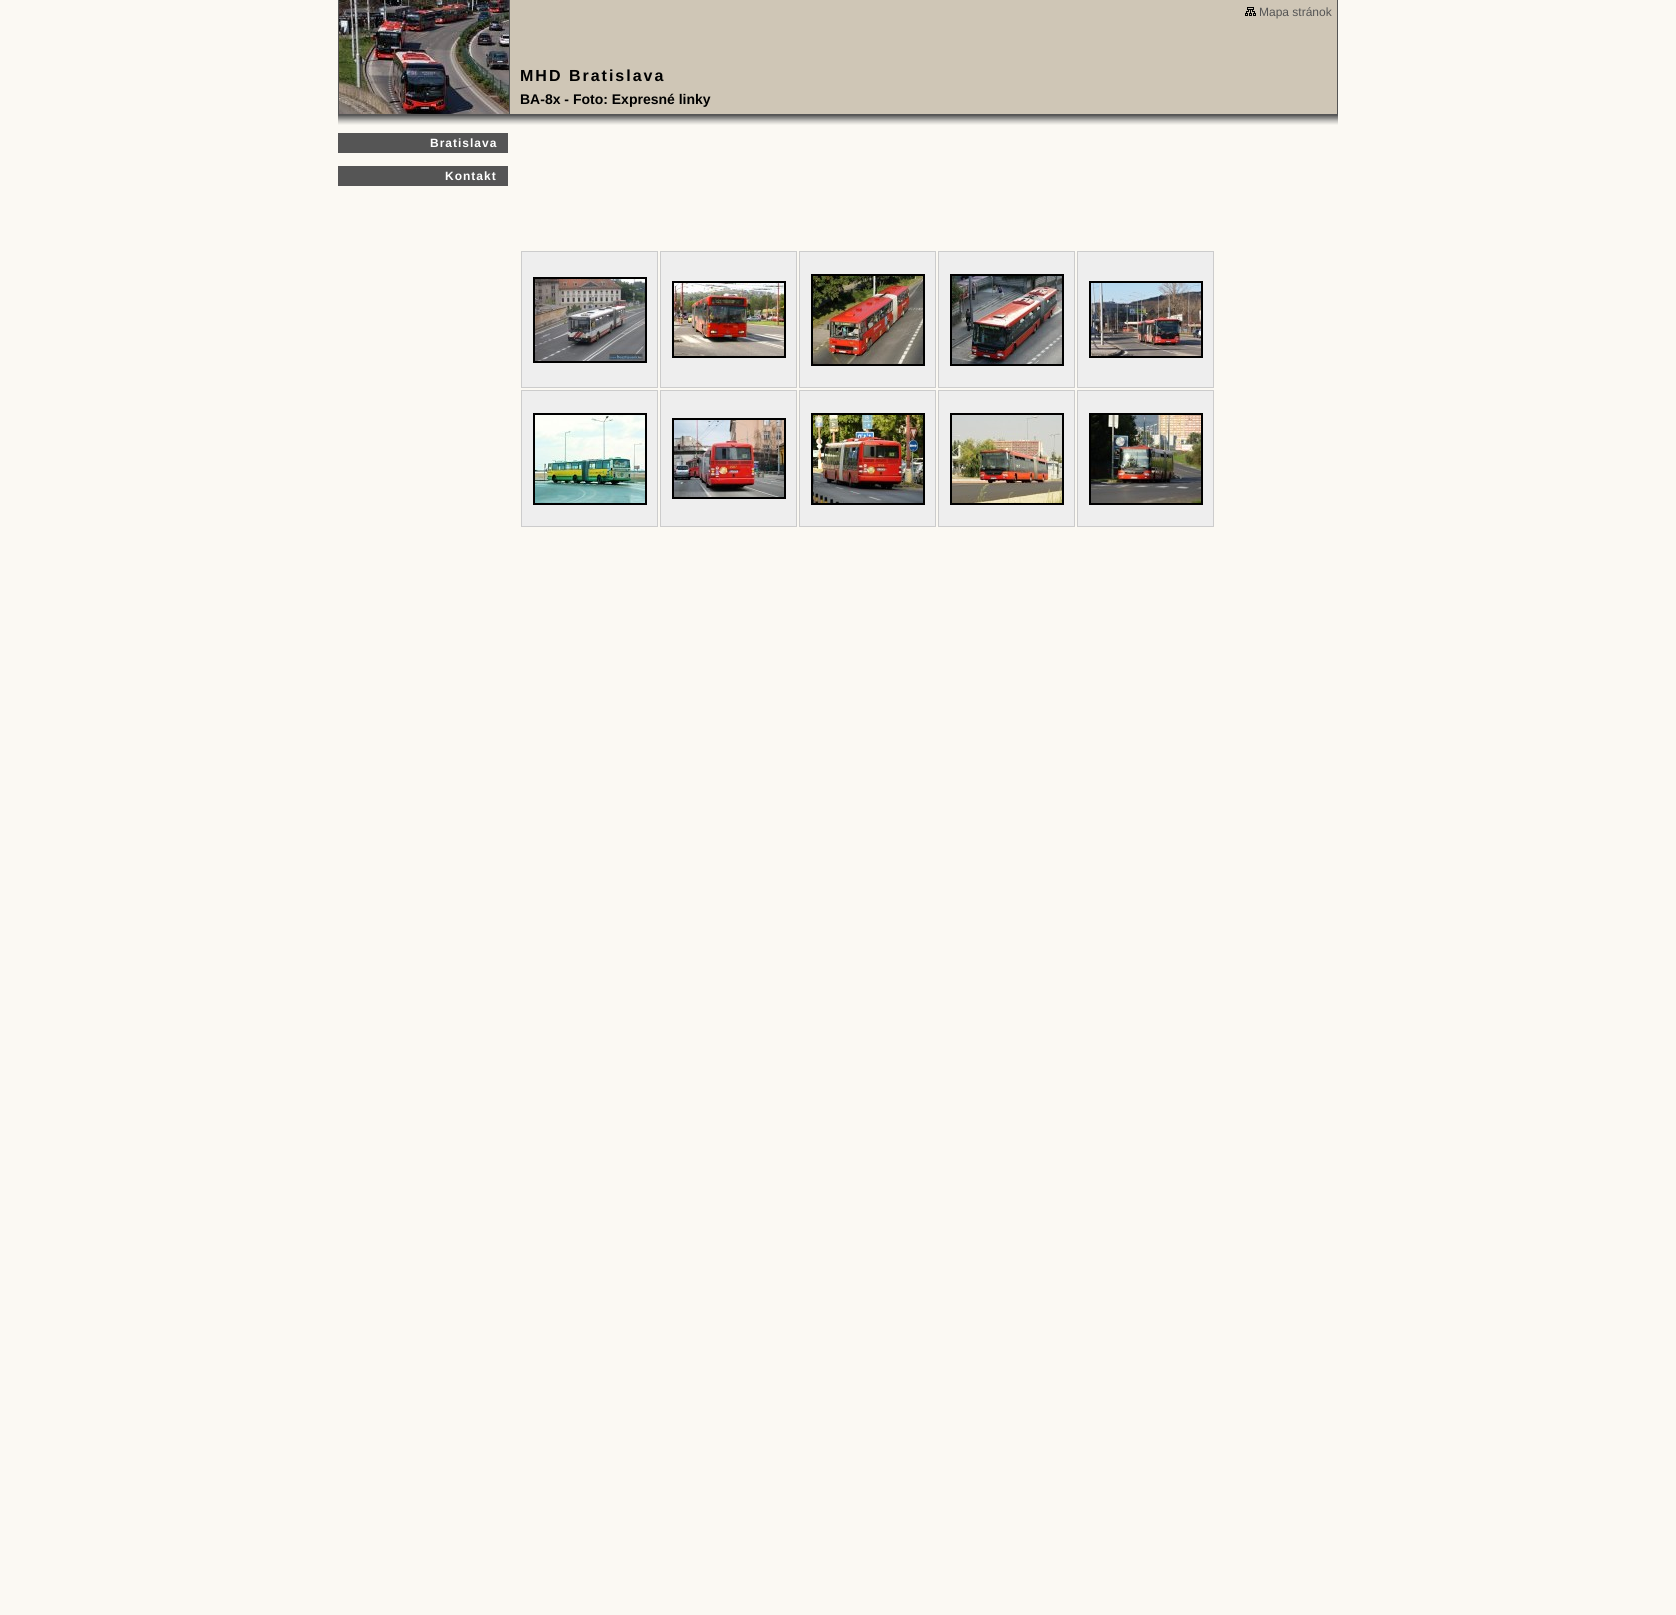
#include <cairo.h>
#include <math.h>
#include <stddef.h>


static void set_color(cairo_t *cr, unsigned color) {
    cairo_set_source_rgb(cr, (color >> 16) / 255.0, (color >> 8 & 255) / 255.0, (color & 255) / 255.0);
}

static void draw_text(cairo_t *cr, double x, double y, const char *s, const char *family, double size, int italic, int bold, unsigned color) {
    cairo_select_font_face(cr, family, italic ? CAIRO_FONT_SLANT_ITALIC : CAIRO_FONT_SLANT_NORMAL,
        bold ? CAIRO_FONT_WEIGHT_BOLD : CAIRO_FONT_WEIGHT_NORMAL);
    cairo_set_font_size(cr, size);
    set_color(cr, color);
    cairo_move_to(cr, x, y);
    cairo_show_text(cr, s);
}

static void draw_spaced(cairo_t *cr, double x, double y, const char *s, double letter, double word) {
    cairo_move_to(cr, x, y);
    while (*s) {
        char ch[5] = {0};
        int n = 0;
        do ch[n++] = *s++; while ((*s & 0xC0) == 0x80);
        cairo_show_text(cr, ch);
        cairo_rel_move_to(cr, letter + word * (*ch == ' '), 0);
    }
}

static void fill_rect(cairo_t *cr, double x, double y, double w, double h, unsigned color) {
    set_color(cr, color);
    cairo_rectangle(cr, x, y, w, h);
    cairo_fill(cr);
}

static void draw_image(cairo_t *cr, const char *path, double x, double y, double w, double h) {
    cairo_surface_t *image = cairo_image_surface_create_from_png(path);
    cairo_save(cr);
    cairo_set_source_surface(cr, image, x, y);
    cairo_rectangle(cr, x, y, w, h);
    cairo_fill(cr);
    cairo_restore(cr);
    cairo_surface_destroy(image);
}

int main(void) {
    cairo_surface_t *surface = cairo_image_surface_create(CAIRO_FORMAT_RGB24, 1676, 1615);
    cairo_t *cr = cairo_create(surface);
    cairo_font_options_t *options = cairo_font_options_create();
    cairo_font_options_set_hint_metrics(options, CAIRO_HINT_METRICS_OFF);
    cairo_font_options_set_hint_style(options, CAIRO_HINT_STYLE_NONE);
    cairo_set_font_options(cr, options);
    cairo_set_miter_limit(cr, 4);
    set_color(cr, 0xFBF9F3);
    cairo_paint(cr);
    fill_rect(cr, 338, 0, 1, 114, 0x555555);
    draw_image(cr, "assets/img1.png", 339, 0, 170, 114);
    fill_rect(cr, 509, 0, 1, 114, 0x555555);
    fill_rect(cr, 510, 0, 827, 114, 0xCFC6B6);
    fill_rect(cr, 1337, 0, 1, 114, 0x555555);
    draw_image(cr, "assets/img2.png", 1245, 7, 11, 9);
    draw_text(cr, 1259, 16, "Mapa stránok", "Liberation Sans", 12, 0, 0, 0x555555);
    cairo_select_font_face(cr, "Liberation Sans", CAIRO_FONT_SLANT_NORMAL, CAIRO_FONT_WEIGHT_BOLD);
    cairo_set_font_size(cr, 16);
    set_color(cr, 0x000000);
    draw_spaced(cr, 520, 81, "MHD Bratislava", 2, 0);
    draw_text(cr, 520, 104, "BA-8x - Foto: Expresné linky", "Liberation Sans", 14, 0, 1, 0x000000);
    draw_image(cr, "assets/img3.png", 338, 115, 172, 10);
    fill_rect(cr, 338, 114, 1000, 1, 0x555555);
    fill_rect(cr, 338, 133, 170, 20, 0x555555);
    cairo_set_font_size(cr, 12);
    set_color(cr, 0xFFFFFF);
    draw_spaced(cr, 430, 147, "Bratislava", 1, 0);
    fill_rect(cr, 338, 166, 170, 20, 0x555555);
    set_color(cr, 0xFFFFFF);
    draw_spaced(cr, 445, 180, "Kontakt", 1, 0);
    draw_image(cr, "assets/img4.png", 510, 115, 828, 10);
    set_color(cr, 0xEEEEEE);
    cairo_rectangle(cr, 521.5, 251.5, 136, 136);
    cairo_fill_preserve(cr);
    set_color(cr, 0xCCCCCC);
    cairo_set_line_width(cr, 1);
    cairo_stroke(cr);
    cairo_rectangle(cr, 534, 278, 112, 84);
    set_color(cr, 0x000000);
    cairo_set_line_width(cr, 2);
    cairo_stroke(cr);
    draw_image(cr, "assets/img5.png", 535, 279, 110, 82);
    set_color(cr, 0xEEEEEE);
    cairo_rectangle(cr, 660.5, 251.5, 136, 136);
    cairo_fill_preserve(cr);
    set_color(cr, 0xCCCCCC);
    cairo_set_line_width(cr, 1);
    cairo_stroke(cr);
    cairo_rectangle(cr, 673, 282, 112, 75);
    set_color(cr, 0x000000);
    cairo_set_line_width(cr, 2);
    cairo_stroke(cr);
    draw_image(cr, "assets/img6.png", 674, 283, 110, 73);
    set_color(cr, 0xEEEEEE);
    cairo_rectangle(cr, 799.5, 251.5, 136, 136);
    cairo_fill_preserve(cr);
    set_color(cr, 0xCCCCCC);
    cairo_set_line_width(cr, 1);
    cairo_stroke(cr);
    cairo_rectangle(cr, 812, 275, 112, 90);
    set_color(cr, 0x000000);
    cairo_set_line_width(cr, 2);
    cairo_stroke(cr);
    draw_image(cr, "assets/img7.png", 813, 276, 110, 88);
    set_color(cr, 0xEEEEEE);
    cairo_rectangle(cr, 938.5, 251.5, 136, 136);
    cairo_fill_preserve(cr);
    set_color(cr, 0xCCCCCC);
    cairo_set_line_width(cr, 1);
    cairo_stroke(cr);
    cairo_rectangle(cr, 951, 275, 112, 90);
    set_color(cr, 0x000000);
    cairo_set_line_width(cr, 2);
    cairo_stroke(cr);
    draw_image(cr, "assets/img8.png", 952, 276, 110, 88);
    set_color(cr, 0xEEEEEE);
    cairo_rectangle(cr, 1077.5, 251.5, 136, 136);
    cairo_fill_preserve(cr);
    set_color(cr, 0xCCCCCC);
    cairo_set_line_width(cr, 1);
    cairo_stroke(cr);
    cairo_rectangle(cr, 1090, 282, 112, 75);
    set_color(cr, 0x000000);
    cairo_set_line_width(cr, 2);
    cairo_stroke(cr);
    draw_image(cr, "assets/img9.png", 1091, 283, 110, 73);
    set_color(cr, 0xEEEEEE);
    cairo_rectangle(cr, 521.5, 390.5, 136, 136);
    cairo_fill_preserve(cr);
    set_color(cr, 0xCCCCCC);
    cairo_set_line_width(cr, 1);
    cairo_stroke(cr);
    cairo_rectangle(cr, 534, 414, 112, 90);
    set_color(cr, 0x000000);
    cairo_set_line_width(cr, 2);
    cairo_stroke(cr);
    draw_image(cr, "assets/img10.png", 535, 415, 110, 88);
    set_color(cr, 0xEEEEEE);
    cairo_rectangle(cr, 660.5, 390.5, 136, 136);
    cairo_fill_preserve(cr);
    set_color(cr, 0xCCCCCC);
    cairo_set_line_width(cr, 1);
    cairo_stroke(cr);
    cairo_rectangle(cr, 673, 419, 112, 79);
    set_color(cr, 0x000000);
    cairo_set_line_width(cr, 2);
    cairo_stroke(cr);
    draw_image(cr, "assets/img11.png", 674, 420, 110, 77);
    set_color(cr, 0xEEEEEE);
    cairo_rectangle(cr, 799.5, 390.5, 136, 136);
    cairo_fill_preserve(cr);
    set_color(cr, 0xCCCCCC);
    cairo_set_line_width(cr, 1);
    cairo_stroke(cr);
    cairo_rectangle(cr, 812, 414, 112, 90);
    set_color(cr, 0x000000);
    cairo_set_line_width(cr, 2);
    cairo_stroke(cr);
    draw_image(cr, "assets/img12.png", 813, 415, 110, 88);
    set_color(cr, 0xEEEEEE);
    cairo_rectangle(cr, 938.5, 390.5, 136, 136);
    cairo_fill_preserve(cr);
    set_color(cr, 0xCCCCCC);
    cairo_set_line_width(cr, 1);
    cairo_stroke(cr);
    cairo_rectangle(cr, 951, 414, 112, 90);
    set_color(cr, 0x000000);
    cairo_set_line_width(cr, 2);
    cairo_stroke(cr);
    draw_image(cr, "assets/img13.png", 952, 415, 110, 88);
    set_color(cr, 0xEEEEEE);
    cairo_rectangle(cr, 1077.5, 390.5, 136, 136);
    cairo_fill_preserve(cr);
    set_color(cr, 0xCCCCCC);
    cairo_set_line_width(cr, 1);
    cairo_stroke(cr);
    cairo_rectangle(cr, 1090, 414, 112, 90);
    set_color(cr, 0x000000);
    cairo_set_line_width(cr, 2);
    cairo_stroke(cr);
    draw_image(cr, "assets/img14.png", 1091, 415, 110, 88);
    cairo_surface_write_to_png(surface, "output.png");
    cairo_font_options_destroy(options);
    cairo_destroy(cr);
    cairo_surface_destroy(surface);
    return 0;
}
